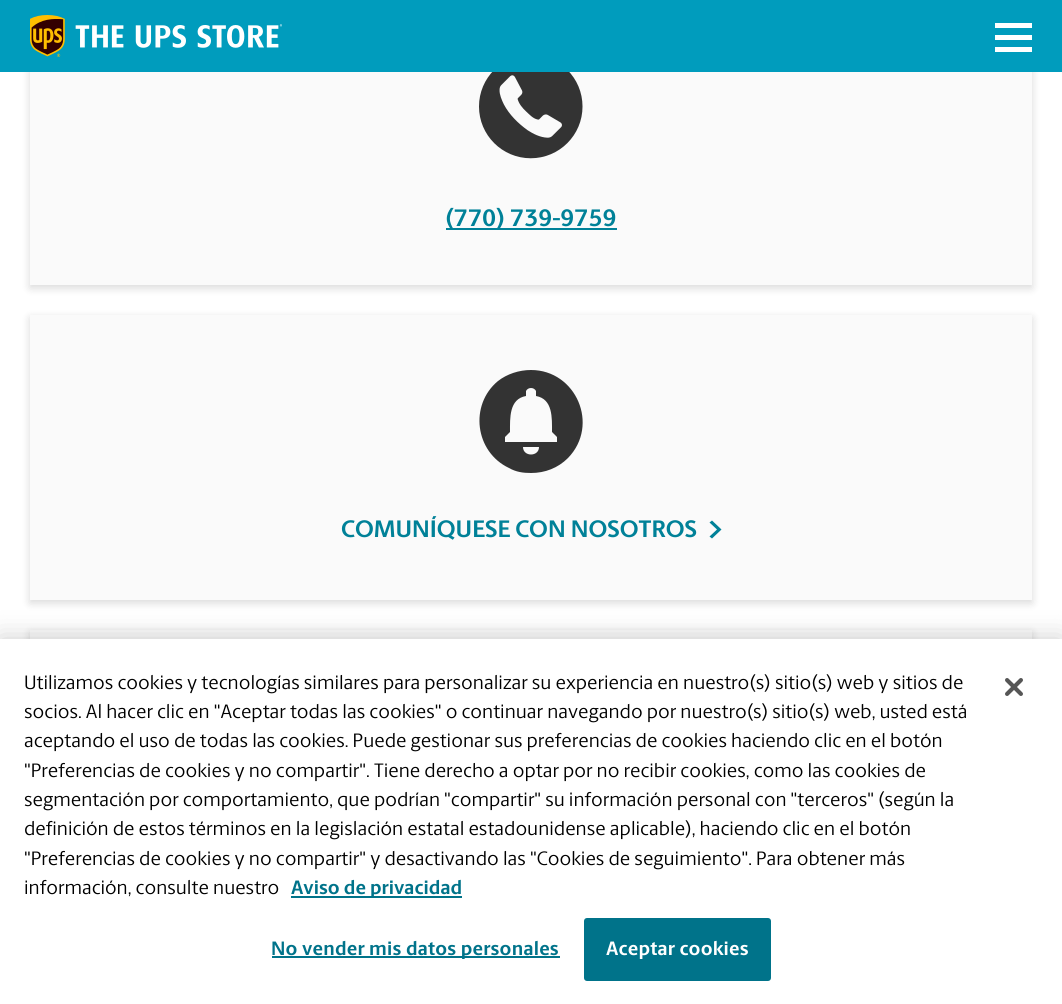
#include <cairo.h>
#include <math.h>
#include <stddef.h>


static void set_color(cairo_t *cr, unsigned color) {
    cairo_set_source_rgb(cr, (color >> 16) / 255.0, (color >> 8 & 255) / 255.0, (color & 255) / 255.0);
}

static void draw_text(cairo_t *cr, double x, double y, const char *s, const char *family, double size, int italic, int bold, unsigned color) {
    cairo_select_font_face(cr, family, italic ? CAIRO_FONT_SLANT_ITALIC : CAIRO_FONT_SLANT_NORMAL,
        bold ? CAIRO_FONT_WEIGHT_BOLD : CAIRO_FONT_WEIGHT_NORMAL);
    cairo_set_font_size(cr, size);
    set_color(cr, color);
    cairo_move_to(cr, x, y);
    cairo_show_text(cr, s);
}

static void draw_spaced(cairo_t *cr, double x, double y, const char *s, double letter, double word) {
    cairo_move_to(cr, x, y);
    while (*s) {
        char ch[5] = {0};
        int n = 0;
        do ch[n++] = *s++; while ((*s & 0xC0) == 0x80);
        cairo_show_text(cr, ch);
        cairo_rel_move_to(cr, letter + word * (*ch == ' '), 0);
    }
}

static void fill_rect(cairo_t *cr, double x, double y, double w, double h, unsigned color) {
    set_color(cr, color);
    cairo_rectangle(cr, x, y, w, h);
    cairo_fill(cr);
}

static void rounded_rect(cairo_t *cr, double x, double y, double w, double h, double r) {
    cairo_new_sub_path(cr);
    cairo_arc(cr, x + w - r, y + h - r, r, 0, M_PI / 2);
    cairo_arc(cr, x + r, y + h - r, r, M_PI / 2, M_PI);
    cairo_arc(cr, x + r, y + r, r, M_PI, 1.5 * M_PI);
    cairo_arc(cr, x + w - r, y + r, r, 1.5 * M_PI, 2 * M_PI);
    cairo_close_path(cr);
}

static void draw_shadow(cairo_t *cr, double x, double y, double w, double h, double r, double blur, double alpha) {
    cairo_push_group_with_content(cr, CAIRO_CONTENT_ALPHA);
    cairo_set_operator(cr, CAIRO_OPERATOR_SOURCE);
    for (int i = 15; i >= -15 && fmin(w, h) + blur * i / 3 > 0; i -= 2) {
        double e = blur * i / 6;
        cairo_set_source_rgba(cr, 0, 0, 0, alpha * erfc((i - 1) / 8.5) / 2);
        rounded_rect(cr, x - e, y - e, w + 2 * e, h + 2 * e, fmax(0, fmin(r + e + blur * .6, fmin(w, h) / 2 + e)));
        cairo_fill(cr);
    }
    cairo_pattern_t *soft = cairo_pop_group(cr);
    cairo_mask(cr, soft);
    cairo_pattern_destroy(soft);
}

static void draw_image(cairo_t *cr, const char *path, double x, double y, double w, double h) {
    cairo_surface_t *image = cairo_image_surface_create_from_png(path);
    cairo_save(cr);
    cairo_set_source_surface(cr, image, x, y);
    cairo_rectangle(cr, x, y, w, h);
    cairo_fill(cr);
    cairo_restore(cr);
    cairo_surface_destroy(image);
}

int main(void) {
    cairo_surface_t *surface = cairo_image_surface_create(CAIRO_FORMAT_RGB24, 1062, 1004);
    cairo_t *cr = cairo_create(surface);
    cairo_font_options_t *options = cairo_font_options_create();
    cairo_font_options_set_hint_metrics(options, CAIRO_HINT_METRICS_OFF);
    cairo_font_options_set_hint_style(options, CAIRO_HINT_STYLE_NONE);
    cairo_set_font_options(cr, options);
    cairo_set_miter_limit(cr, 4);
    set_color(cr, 0xFFFFFF);
    cairo_paint(cr);
    set_color(cr, 0x000000);
    draw_shadow(cr, 30, 3, 1002, 285, 0, 4.5, 0.15);
    fill_rect(cr, 0, 0, 1062, 72, 0x009CBD);
    draw_image(cr, "assets/img1.png", 30, 15, 252, 42);
    fill_rect(cr, 995, 23, 37, 5, 0xFFFFFF);
    fill_rect(cr, 995, 35, 37, 5, 0xFFFFFF);
    fill_rect(cr, 995, 47, 37, 5, 0xFFFFFF);
    fill_rect(cr, 30, 72, 1002, 213, 0xFAFAFA);
    draw_image(cr, "assets/img2.png", 479, 72, 104, 87);
    fill_rect(cr, 446, 228, 171, 2, 0x008198);
    draw_text(cr, 445, 226, "(770) 739-9759", "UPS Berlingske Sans", 24, 0, 1, 0x008198);
    set_color(cr, 0x000000);
    draw_shadow(cr, 30, 318, 1002, 285, 0, 4.5, 0.15);
    fill_rect(cr, 30, 315, 1002, 285, 0xFAFAFA);
    set_color(cr, 0x333333);
    cairo_new_path(cr);
    cairo_move_to(cr, 531, 370);
    cairo_curve_to(cr, 576, 370, 600, 425, 568, 458);
    cairo_curve_to(cr, 558, 468, 545, 473, 531, 473);
    cairo_curve_to(cr, 523, 473, 516, 472, 509, 468);
    cairo_curve_to(cr, 475, 452, 469, 405, 498, 381);
    cairo_curve_to(cr, 507, 374, 519, 370, 531, 370);
    cairo_close_path(cr);
    cairo_move_to(cr, 557, 442);
    cairo_line_to(cr, 557, 437);
    cairo_line_to(cr, 552, 432);
    cairo_curve_to(cr, 552, 418, 553, 399, 536, 396);
    cairo_line_to(cr, 536, 391);
    cairo_curve_to(cr, 534, 387, 528, 387, 526, 391);
    cairo_line_to(cr, 526, 396);
    cairo_curve_to(cr, 509, 399, 510, 418, 510, 432);
    cairo_line_to(cr, 505, 437);
    cairo_line_to(cr, 505, 442);
    cairo_close_path(cr);
    cairo_move_to(cr, 539, 447);
    cairo_line_to(cr, 523, 447);
    cairo_curve_to(cr, 523, 457, 539, 457, 539, 447);
    cairo_close_path(cr);
    cairo_fill(cr);
    draw_text(cr, 341, 537, "COMUNÍQUESE CON NOSOTROS", "UPS Berlingske Sans", 24, 0, 1, 0x008198);
    cairo_set_fill_rule(cr, CAIRO_FILL_RULE_EVEN_ODD);
    cairo_new_path(cr);
    cairo_move_to(cr, 709.5, 522.5);
    cairo_line_to(cr, 712, 520.5);
    cairo_line_to(cr, 721.5, 529.5);
    cairo_line_to(cr, 712, 538.5);
    cairo_line_to(cr, 709.5, 536.5);
    cairo_line_to(cr, 717, 529.5);
    cairo_close_path(cr);
    cairo_fill(cr);
    set_color(cr, 0x000000);
    draw_shadow(cr, 30, 633, 1002, 285, 0, 4.5, 0.15);
    fill_rect(cr, 30, 630, 1002, 9, 0xFAFAFA);
    set_color(cr, 0x000000);
    draw_shadow(cr, 0, 639, 1062, 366, 0, 13.5, 0.2);
    fill_rect(cr, 0, 639, 1062, 365, 0xFFFFFF);
    draw_text(cr, 24, 689, "Utilizamos cookies y tecnologías similares para personalizar su experiencia en nuestro(s) sitio(s) web y sitios de", "UPS Berlingske Sans", 19.5, 0, 0, 0x000000);
    draw_text(cr, 24, 718, "socios. Al hacer clic en \"Aceptar todas las cookies\" o continuar navegando por nuestro(s) sitio(s) web, usted está", "UPS Berlingske Sans", 19.5, 0, 0, 0x000000);
    draw_text(cr, 24, 747, "aceptando el uso de todas las cookies. Puede gestionar sus preferencias de cookies haciendo clic en el botón", "UPS Berlingske Sans", 19.5, 0, 0, 0x000000);
    draw_text(cr, 24, 777, "\"Preferencias de cookies y no compartir\". Tiene derecho a optar por no recibir cookies, como las cookies de", "UPS Berlingske Sans", 19.5, 0, 0, 0x000000);
    draw_text(cr, 24, 806, "segmentación por comportamiento, que podrían \"compartir\" su información personal con \"terceros\" (según la", "UPS Berlingske Sans", 19.5, 0, 0, 0x000000);
    draw_text(cr, 24, 835, "definición de estos términos en la legislación estatal estadounidense aplicable), haciendo clic en el botón", "UPS Berlingske Sans", 19.5, 0, 0, 0x000000);
    draw_text(cr, 24, 865, "\"Preferencias de cookies y no compartir\" y desactivando las \"Cookies de seguimiento\". Para obtener más", "UPS Berlingske Sans", 19.5, 0, 0, 0x000000);
    draw_text(cr, 24, 894, "información, consulte nuestro", "UPS Berlingske Sans", 19.5, 0, 0, 0x000000);
    fill_rect(cr, 291, 896, 171, 2, 0x00738A);
    draw_text(cr, 291, 894, "Aviso de privacidad", "UPS Berlingske Sans", 19.5, 0, 1, 0x00738A);
    fill_rect(cr, 272, 956, 288, 2, 0x00738A);
    draw_spaced(cr, 271, 955, "No vender mis datos personales", 0.2, 0);
    rounded_rect(cr, 585, 919, 185, 61, 2);
    cairo_fill_preserve(cr);
    cairo_stroke(cr);
    set_color(cr, 0xFFFFFF);
    draw_spaced(cr, 606, 955, "Aceptar cookies", 0.2, 0);
    draw_image(cr, "assets/img3.png", 1005, 678, 18, 18);
    cairo_surface_write_to_png(surface, "output.png");
    cairo_font_options_destroy(options);
    cairo_destroy(cr);
    cairo_surface_destroy(surface);
    return 0;
}
